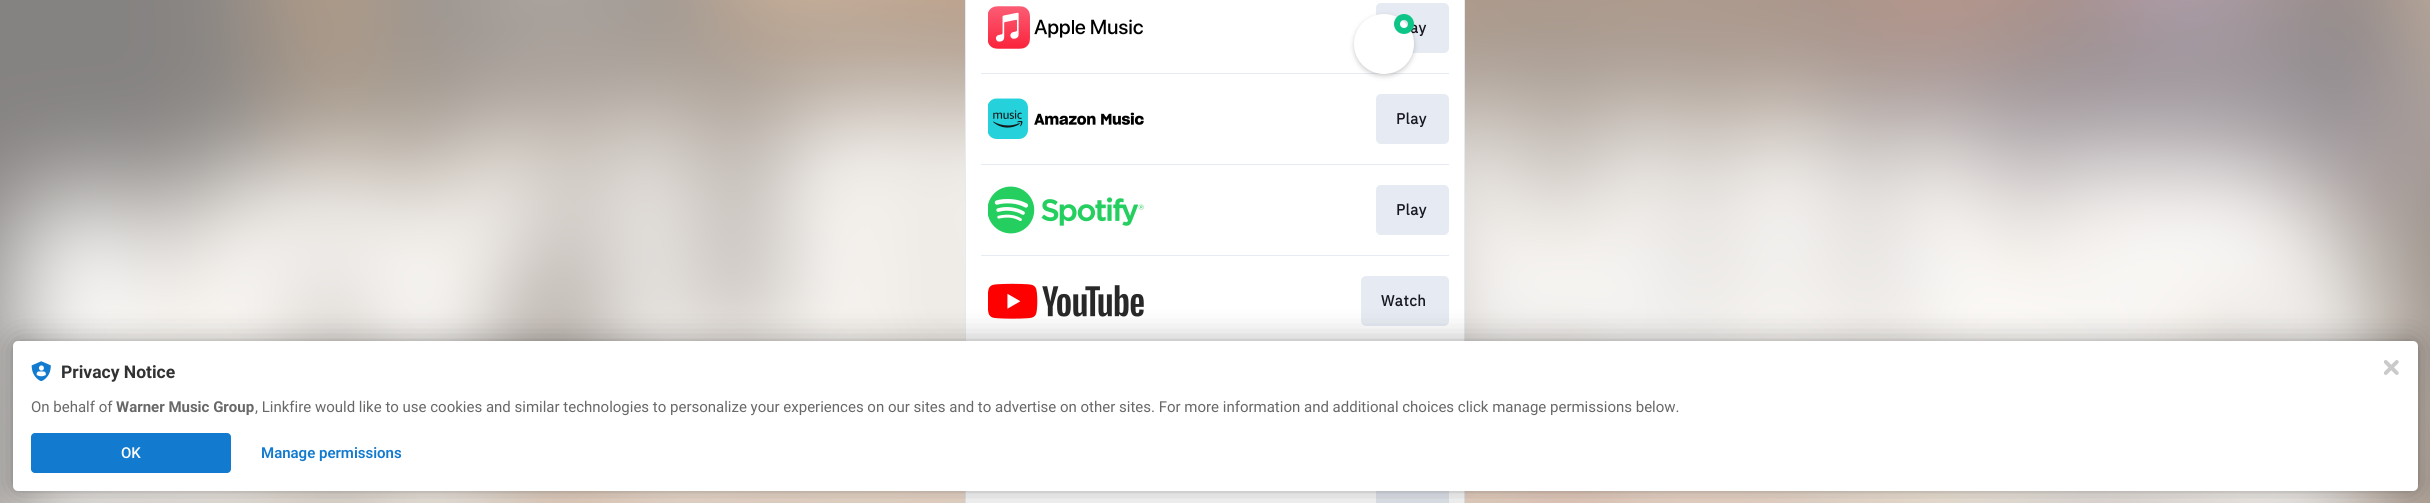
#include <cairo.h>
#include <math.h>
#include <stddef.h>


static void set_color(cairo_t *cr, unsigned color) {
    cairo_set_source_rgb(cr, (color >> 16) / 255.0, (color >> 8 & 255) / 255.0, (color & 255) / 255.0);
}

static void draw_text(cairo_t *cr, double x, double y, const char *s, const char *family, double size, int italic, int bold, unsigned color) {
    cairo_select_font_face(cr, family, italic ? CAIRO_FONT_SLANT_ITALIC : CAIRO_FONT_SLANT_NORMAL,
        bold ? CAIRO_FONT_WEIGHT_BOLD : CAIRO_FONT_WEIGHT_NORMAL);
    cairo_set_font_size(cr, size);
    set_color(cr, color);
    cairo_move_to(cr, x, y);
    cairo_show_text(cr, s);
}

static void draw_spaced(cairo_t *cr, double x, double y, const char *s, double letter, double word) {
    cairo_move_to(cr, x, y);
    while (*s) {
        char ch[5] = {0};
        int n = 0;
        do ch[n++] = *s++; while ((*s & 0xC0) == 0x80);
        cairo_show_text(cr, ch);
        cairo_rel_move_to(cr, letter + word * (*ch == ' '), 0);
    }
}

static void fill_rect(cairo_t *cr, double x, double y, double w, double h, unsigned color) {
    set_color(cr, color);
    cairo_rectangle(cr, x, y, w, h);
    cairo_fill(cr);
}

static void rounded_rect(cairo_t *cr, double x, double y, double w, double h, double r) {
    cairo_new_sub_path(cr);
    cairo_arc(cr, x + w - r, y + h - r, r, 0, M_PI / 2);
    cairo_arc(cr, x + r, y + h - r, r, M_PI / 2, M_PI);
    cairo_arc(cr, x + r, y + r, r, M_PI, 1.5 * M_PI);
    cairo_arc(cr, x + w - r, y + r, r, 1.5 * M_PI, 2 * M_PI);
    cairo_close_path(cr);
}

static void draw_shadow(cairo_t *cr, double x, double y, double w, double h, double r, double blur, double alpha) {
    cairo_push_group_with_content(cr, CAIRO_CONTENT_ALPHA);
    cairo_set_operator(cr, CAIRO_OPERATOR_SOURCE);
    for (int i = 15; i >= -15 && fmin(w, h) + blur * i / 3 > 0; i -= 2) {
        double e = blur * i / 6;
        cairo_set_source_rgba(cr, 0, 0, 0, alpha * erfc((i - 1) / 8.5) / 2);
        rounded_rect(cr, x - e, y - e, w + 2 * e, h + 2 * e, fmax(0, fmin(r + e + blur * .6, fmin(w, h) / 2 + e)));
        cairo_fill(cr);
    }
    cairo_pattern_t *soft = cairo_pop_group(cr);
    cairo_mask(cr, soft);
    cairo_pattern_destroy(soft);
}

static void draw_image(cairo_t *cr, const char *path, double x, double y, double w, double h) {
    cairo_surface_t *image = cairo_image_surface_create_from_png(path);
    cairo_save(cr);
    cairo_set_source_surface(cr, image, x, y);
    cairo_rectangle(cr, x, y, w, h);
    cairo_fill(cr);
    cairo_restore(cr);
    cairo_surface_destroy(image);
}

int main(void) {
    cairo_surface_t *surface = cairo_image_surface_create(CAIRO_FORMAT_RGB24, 2430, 503);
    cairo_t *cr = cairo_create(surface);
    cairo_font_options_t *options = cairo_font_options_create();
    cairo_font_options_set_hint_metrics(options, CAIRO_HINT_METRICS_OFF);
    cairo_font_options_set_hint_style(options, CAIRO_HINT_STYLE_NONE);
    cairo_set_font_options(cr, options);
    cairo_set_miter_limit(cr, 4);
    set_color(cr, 0xFFFFFF);
    cairo_paint(cr);
    draw_image(cr, "assets/img1.png", 0, 0, 2430, 503);
    set_color(cr, 0xFFFFFF);
    cairo_rectangle(cr, 965.5, -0.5, 499, 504);
    cairo_fill_preserve(cr);
    set_color(cr, 0xE6EAF2);
    cairo_set_line_width(cr, 1);
    cairo_stroke(cr);
    rounded_rect(cr, 1376, 3, 73, 50, 5);
    cairo_fill(cr);
    fill_rect(cr, 981, 73, 468, 1, 0xE6EAF2);
    set_color(cr, 0x000000);
    draw_shadow(cr, 1354, 16, 60, 60, 30, 2.5, 0.2);
    cairo_select_font_face(cr, "IBM Plex Sans", CAIRO_FONT_SLANT_NORMAL, CAIRO_FONT_WEIGHT_BOLD);
    cairo_set_font_size(cr, 15);
    set_color(cr, 0x181721);
    draw_spaced(cr, 1410, 33, "ay", 0.5, 0);
    set_color(cr, 0xFFFFFF);
    cairo_new_path(cr);
    cairo_arc(cr, 1384, 44, 30, 0, 2 * M_PI);
    cairo_fill(cr);
    cairo_arc(cr, 1404, 24, 7, 0, 2 * M_PI);
    set_color(cr, 0x0DC587);
    cairo_set_line_width(cr, 6);
    cairo_stroke(cr);
    draw_image(cr, "assets/img2.png", 988, 6, 155, 43);
    draw_image(cr, "assets/img3.png", 988, 98, 156, 41);
    set_color(cr, 0xE6EAF2);
    rounded_rect(cr, 1376, 94, 73, 50, 5);
    cairo_fill(cr);
    set_color(cr, 0x181721);
    draw_spaced(cr, 1396, 124, "Play", 0.5, 0);
    fill_rect(cr, 981, 164, 468, 1, 0xE6EAF2);
    draw_image(cr, "assets/img4.png", 988, 186, 156, 48);
    rounded_rect(cr, 1376, 185, 73, 50, 5);
    cairo_fill(cr);
    set_color(cr, 0x181721);
    draw_spaced(cr, 1396, 215, "Play", 0.5, 0);
    fill_rect(cr, 981, 255, 468, 1, 0xE6EAF2);
    draw_image(cr, "assets/img5.png", 988, 283, 156, 36);
    rounded_rect(cr, 1361, 276, 88, 50, 5);
    cairo_fill(cr);
    set_color(cr, 0x181721);
    draw_spaced(cr, 1381, 306, "Watch", 0.5, 0);
    fill_rect(cr, 1376, 491, 73, 12, 0xE6EAF2);
    set_color(cr, 0x000000);
    draw_shadow(cr, 13, 341, 2405, 150, 5, 2.5, 0.12);
    draw_shadow(cr, 13, 341, 2405, 150, 5, 15, 0.3);
    set_color(cr, 0xFFFFFF);
    rounded_rect(cr, 13, 341, 2405, 150, 5);
    cairo_fill(cr);
    draw_image(cr, "assets/img6.png", 31, 361, 20, 20);
    draw_text(cr, 61, 378, "Privacy Notice", "Roboto", 17.5, 0, 1, 0x323232);
    draw_text(cr, 31, 412, "On behalf of", "Roboto", 15, 0, 0, 0x686868);
    draw_text(cr, 116, 412, "Warner Music Group", "Roboto", 15, 0, 1, 0x686868);
    draw_text(cr, 255, 412, ", Linkfire would like to use cookies and similar technologies to personalize your experiences on our sites and to advertise on other sites. For more information and additional choices click manage permissions below.", "Roboto", 15, 0, 0, 0x686868);
    set_color(cr, 0x137BCF);
    rounded_rect(cr, 31, 433, 200, 40, 4);
    cairo_fill(cr);
    draw_text(cr, 121, 458, "OK", "Roboto Medium", 15, 0, 0, 0xFFFFFF);
    draw_text(cr, 261, 458, "Manage permissions", "Roboto SemiBold", 15, 0, 0, 0x137BCF);
    draw_image(cr, "assets/img7.png", 2384, 360, 15, 15);
    cairo_surface_write_to_png(surface, "output.png");
    cairo_font_options_destroy(options);
    cairo_destroy(cr);
    cairo_surface_destroy(surface);
    return 0;
}
